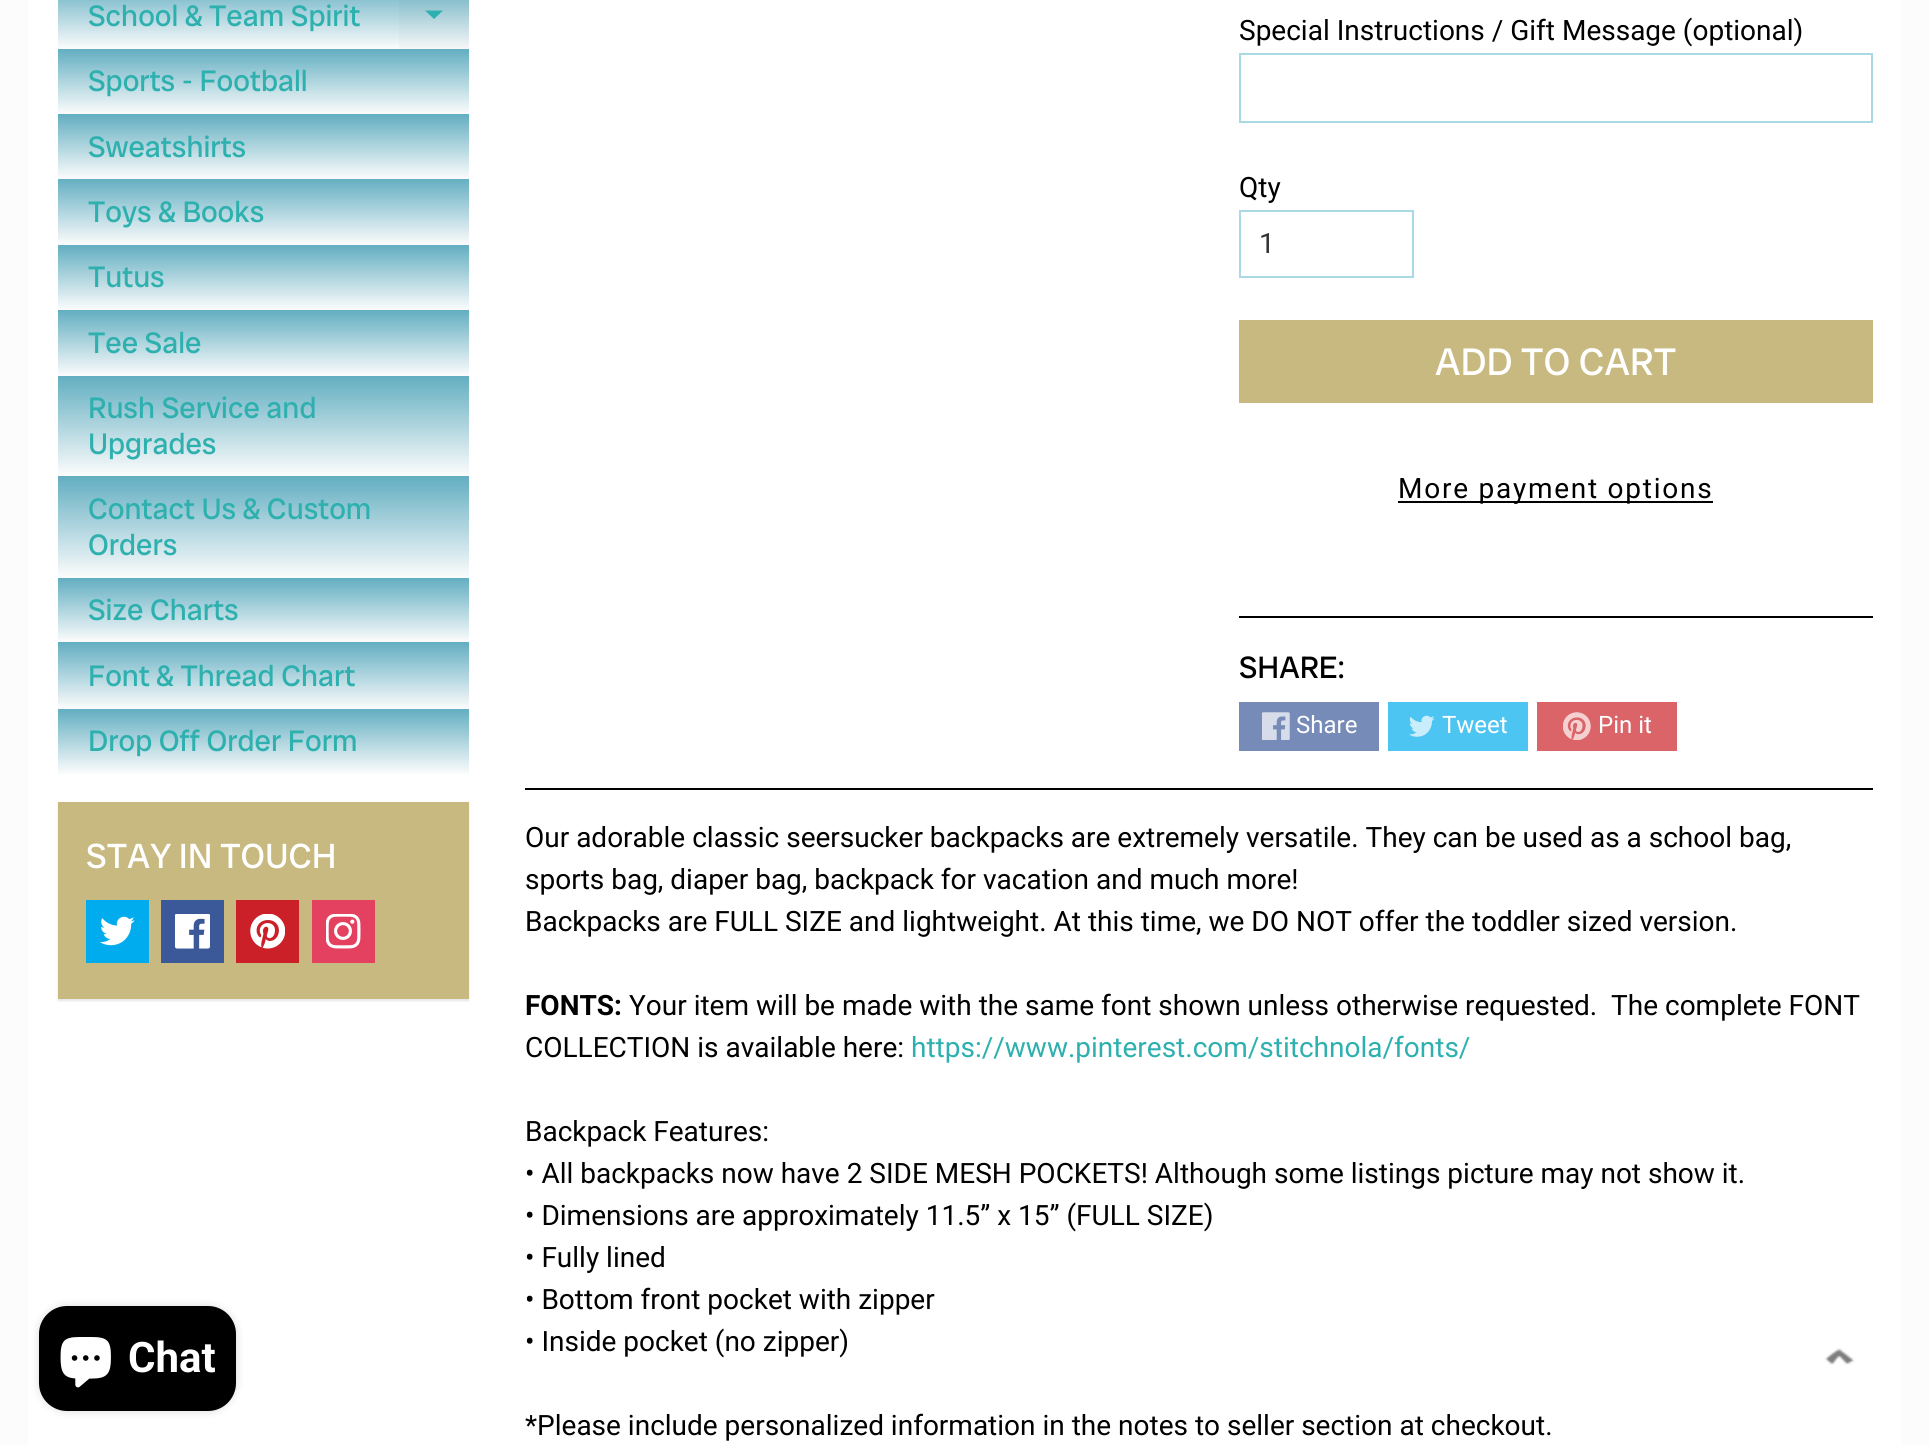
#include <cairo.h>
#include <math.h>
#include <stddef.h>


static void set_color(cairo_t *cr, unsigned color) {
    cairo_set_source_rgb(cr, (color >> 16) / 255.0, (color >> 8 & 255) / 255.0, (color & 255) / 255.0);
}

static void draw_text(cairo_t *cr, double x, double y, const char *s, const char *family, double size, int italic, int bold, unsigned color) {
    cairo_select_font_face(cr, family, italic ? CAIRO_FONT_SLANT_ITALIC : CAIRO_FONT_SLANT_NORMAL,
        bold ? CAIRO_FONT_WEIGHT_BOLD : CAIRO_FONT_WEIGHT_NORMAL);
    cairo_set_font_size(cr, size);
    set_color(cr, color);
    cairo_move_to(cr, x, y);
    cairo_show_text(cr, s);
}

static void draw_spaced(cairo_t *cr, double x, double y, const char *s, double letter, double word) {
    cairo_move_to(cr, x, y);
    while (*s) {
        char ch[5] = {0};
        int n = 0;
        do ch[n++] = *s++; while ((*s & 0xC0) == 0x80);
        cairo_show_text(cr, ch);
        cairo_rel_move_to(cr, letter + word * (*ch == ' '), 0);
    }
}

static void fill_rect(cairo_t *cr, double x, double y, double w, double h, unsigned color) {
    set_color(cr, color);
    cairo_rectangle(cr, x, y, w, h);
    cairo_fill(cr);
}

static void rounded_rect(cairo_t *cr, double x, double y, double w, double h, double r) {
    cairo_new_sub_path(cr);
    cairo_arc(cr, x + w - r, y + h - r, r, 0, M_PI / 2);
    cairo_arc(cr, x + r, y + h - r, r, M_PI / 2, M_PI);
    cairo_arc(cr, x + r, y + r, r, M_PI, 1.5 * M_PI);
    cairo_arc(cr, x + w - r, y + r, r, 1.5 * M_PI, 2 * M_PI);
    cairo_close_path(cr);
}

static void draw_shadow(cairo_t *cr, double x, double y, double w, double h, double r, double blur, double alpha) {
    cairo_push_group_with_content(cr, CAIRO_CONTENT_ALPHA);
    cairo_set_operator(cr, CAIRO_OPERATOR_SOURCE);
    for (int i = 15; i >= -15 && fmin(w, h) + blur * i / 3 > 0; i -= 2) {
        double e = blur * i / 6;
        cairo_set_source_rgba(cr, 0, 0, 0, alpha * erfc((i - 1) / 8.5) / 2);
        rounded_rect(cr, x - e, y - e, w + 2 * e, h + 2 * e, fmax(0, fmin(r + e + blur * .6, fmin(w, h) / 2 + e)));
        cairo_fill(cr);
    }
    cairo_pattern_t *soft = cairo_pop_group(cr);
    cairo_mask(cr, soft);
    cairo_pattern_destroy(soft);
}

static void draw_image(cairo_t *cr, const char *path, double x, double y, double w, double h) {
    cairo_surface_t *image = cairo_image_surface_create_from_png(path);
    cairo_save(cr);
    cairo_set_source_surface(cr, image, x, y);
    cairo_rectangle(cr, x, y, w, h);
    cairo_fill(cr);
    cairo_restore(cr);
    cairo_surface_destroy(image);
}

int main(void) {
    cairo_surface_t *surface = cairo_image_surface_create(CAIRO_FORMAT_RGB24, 1929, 1446);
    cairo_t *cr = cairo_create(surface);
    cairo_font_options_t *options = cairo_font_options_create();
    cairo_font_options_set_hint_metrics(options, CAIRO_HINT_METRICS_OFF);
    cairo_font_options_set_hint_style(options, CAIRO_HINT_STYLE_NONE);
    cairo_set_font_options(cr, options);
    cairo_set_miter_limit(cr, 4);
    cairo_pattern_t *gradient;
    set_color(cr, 0xFCFCFC);
    cairo_paint(cr);
    fill_rect(cr, 28, 0, 1874, 1446, 0xFFFFFF);
    gradient = cairo_pattern_create_linear(263, -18, 263, 49);
    cairo_pattern_add_color_stop_rgba(gradient, 0, 0.384, 0.682, 0.757, 1);
    cairo_pattern_add_color_stop_rgba(gradient, 1, 0.988, 0.988, 0.988, 1);
    cairo_set_source(cr, gradient);
    cairo_pattern_destroy(gradient);
    cairo_rectangle(cr, 58, 0, 341, 49);
    cairo_fill(cr);
    gradient = cairo_pattern_create_linear(263, -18, 263, 49);
    cairo_pattern_add_color_stop_rgba(gradient, 0, 0.376, 0.671, 0.741, 1);
    cairo_pattern_add_color_stop_rgba(gradient, 1, 0.969, 0.969, 0.969, 1);
    cairo_set_source(cr, gradient);
    cairo_pattern_destroy(gradient);
    cairo_rectangle(cr, 399, 0, 70, 49);
    cairo_fill(cr);
    draw_text(cr, 88, 26, "School & Team Spirit", "Radio Canada Big", 29.75, 0, 0, 0x2EB0AF);
    cairo_new_path(cr);
    cairo_move_to(cr, 425, 10.5);
    cairo_line_to(cr, 443, 10.5);
    cairo_line_to(cr, 434, 19);
    cairo_close_path(cr);
    cairo_fill(cr);
    gradient = cairo_pattern_create_linear(263, 49, 263, 114);
    cairo_pattern_add_color_stop_rgba(gradient, 0, 0.384, 0.682, 0.757, 1);
    cairo_pattern_add_color_stop_rgba(gradient, 1, 0.988, 0.988, 0.988, 1);
    cairo_set_source(cr, gradient);
    cairo_pattern_destroy(gradient);
    cairo_rectangle(cr, 58, 49, 411, 65);
    cairo_fill(cr);
    draw_text(cr, 88, 91, "Sports - Football", "Radio Canada Big", 29.75, 0, 0, 0x2EB0AF);
    gradient = cairo_pattern_create_linear(263, 114, 263, 179);
    cairo_pattern_add_color_stop_rgba(gradient, 0, 0.384, 0.682, 0.757, 1);
    cairo_pattern_add_color_stop_rgba(gradient, 1, 0.988, 0.988, 0.988, 1);
    cairo_set_source(cr, gradient);
    cairo_pattern_destroy(gradient);
    cairo_rectangle(cr, 58, 114, 411, 65);
    cairo_fill(cr);
    draw_text(cr, 88, 157, "Sweatshirts", "Radio Canada Big", 29.75, 0, 0, 0x2EB0AF);
    gradient = cairo_pattern_create_linear(263, 178, 263, 245);
    cairo_pattern_add_color_stop_rgba(gradient, 0, 0.384, 0.682, 0.757, 1);
    cairo_pattern_add_color_stop_rgba(gradient, 1, 0.988, 0.988, 0.988, 1);
    cairo_set_source(cr, gradient);
    cairo_pattern_destroy(gradient);
    cairo_rectangle(cr, 58, 179, 411, 66);
    cairo_fill(cr);
    draw_text(cr, 88, 222, "Toys & Books", "Radio Canada Big", 29.75, 0, 0, 0x2EB0AF);
    gradient = cairo_pattern_create_linear(263, 245, 263, 310);
    cairo_pattern_add_color_stop_rgba(gradient, 0, 0.384, 0.682, 0.757, 1);
    cairo_pattern_add_color_stop_rgba(gradient, 1, 0.988, 0.988, 0.988, 1);
    cairo_set_source(cr, gradient);
    cairo_pattern_destroy(gradient);
    cairo_rectangle(cr, 58, 245, 411, 65);
    cairo_fill(cr);
    draw_text(cr, 88, 287, "Tutus", "Radio Canada Big", 29.75, 0, 0, 0x2EB0AF);
    gradient = cairo_pattern_create_linear(263, 310, 263, 376);
    cairo_pattern_add_color_stop_rgba(gradient, 0, 0.384, 0.682, 0.757, 1);
    cairo_pattern_add_color_stop_rgba(gradient, 1, 0.988, 0.988, 0.988, 1);
    cairo_set_source(cr, gradient);
    cairo_pattern_destroy(gradient);
    cairo_rectangle(cr, 58, 310, 411, 66);
    cairo_fill(cr);
    draw_text(cr, 88, 353, "Tee Sale", "Radio Canada Big", 29.75, 0, 0, 0x2EB0AF);
    gradient = cairo_pattern_create_linear(263, 376, 263, 476);
    cairo_pattern_add_color_stop_rgba(gradient, 0, 0.384, 0.682, 0.757, 1);
    cairo_pattern_add_color_stop_rgba(gradient, 1, 0.988, 0.988, 0.988, 1);
    cairo_set_source(cr, gradient);
    cairo_pattern_destroy(gradient);
    cairo_rectangle(cr, 58, 376, 411, 100);
    cairo_fill(cr);
    draw_text(cr, 88, 418, "Rush Service and", "Radio Canada Big", 29.75, 0, 0, 0x2EB0AF);
    draw_text(cr, 88, 454, "Upgrades", "Radio Canada Big", 29.75, 0, 0, 0x2EB0AF);
    gradient = cairo_pattern_create_linear(263, 476, 263, 578);
    cairo_pattern_add_color_stop_rgba(gradient, 0, 0.384, 0.682, 0.757, 1);
    cairo_pattern_add_color_stop_rgba(gradient, 1, 0.988, 0.988, 0.988, 1);
    cairo_set_source(cr, gradient);
    cairo_pattern_destroy(gradient);
    cairo_rectangle(cr, 58, 476, 411, 102);
    cairo_fill(cr);
    draw_text(cr, 88, 519, "Contact Us & Custom", "Radio Canada Big", 29.75, 0, 0, 0x2EB0AF);
    draw_text(cr, 88, 555, "Orders", "Radio Canada Big", 29.75, 0, 0, 0x2EB0AF);
    gradient = cairo_pattern_create_linear(263, 578, 263, 642);
    cairo_pattern_add_color_stop_rgba(gradient, 0, 0.384, 0.682, 0.757, 1);
    cairo_pattern_add_color_stop_rgba(gradient, 1, 0.988, 0.988, 0.988, 1);
    cairo_set_source(cr, gradient);
    cairo_pattern_destroy(gradient);
    cairo_rectangle(cr, 58, 578, 411, 64);
    cairo_fill(cr);
    draw_text(cr, 88, 620, "Size Charts", "Radio Canada Big", 29.75, 0, 0, 0x2EB0AF);
    gradient = cairo_pattern_create_linear(263, 642, 263, 709);
    cairo_pattern_add_color_stop_rgba(gradient, 0, 0.384, 0.682, 0.757, 1);
    cairo_pattern_add_color_stop_rgba(gradient, 1, 0.988, 0.988, 0.988, 1);
    cairo_set_source(cr, gradient);
    cairo_pattern_destroy(gradient);
    cairo_rectangle(cr, 58, 642, 411, 67);
    cairo_fill(cr);
    draw_text(cr, 88, 686, "Font & Thread Chart", "Radio Canada Big", 29.75, 0, 0, 0x2EB0AF);
    gradient = cairo_pattern_create_linear(263, 709, 263, 774);
    cairo_pattern_add_color_stop_rgba(gradient, 0, 0.384, 0.682, 0.757, 1);
    cairo_pattern_add_color_stop_rgba(gradient, 1, 0.988, 0.988, 0.988, 1);
    cairo_set_source(cr, gradient);
    cairo_pattern_destroy(gradient);
    cairo_rectangle(cr, 58, 709, 411, 65);
    cairo_fill(cr);
    draw_text(cr, 88, 751, "Drop Off Order Form", "Radio Canada Big", 29.75, 0, 0, 0x2EB0AF);
    set_color(cr, 0x000000);
    draw_shadow(cr, 58, 803, 411, 198, 0, 1, 0.1);
    fill_rect(cr, 58, 802, 411, 197, 0xC7B97F);
    draw_text(cr, 86, 868, "STAY IN TOUCH", "Radio Canada Big", 35, 0, 0, 0xFFFFFF);
    fill_rect(cr, 86, 900, 63, 63, 0x00ACED);
    draw_image(cr, "assets/img1.png", 100, 916, 35, 30);
    fill_rect(cr, 161, 900, 63, 63, 0x3B5998);
    draw_image(cr, "assets/img2.png", 175, 914, 35, 35);
    fill_rect(cr, 236, 900, 63, 63, 0xCB2027);
    draw_image(cr, "assets/img3.png", 250, 914, 35, 35);
    fill_rect(cr, 312, 900, 63, 63, 0xE4405F);
    draw_image(cr, "assets/img4.png", 326, 914, 35, 35);
    draw_text(cr, 1239, 40, "Special Instructions / Gift Message (optional)", "Roboto", 28, 0, 0, 0x000000);
    cairo_rectangle(cr, 1240, 54, 632, 68);
    set_color(cr, 0xAAD9E6);
    cairo_stroke(cr);
    draw_text(cr, 1239, 197, "Qty", "Roboto", 28, 0, 0, 0x000000);
    cairo_rectangle(cr, 1240, 211, 173, 66);
    set_color(cr, 0xAAD9E6);
    cairo_stroke(cr);
    draw_text(cr, 1259, 253, "1", "Roboto", 28, 0, 0, 0x333333);
    fill_rect(cr, 1239, 320, 634, 83, 0xC7B97F);
    draw_text(cr, 1435, 375, "ADD TO CART", "Radio Canada Big", 38.5, 0, 0, 0xFFFFFF);
    fill_rect(cr, 1398, 501, 315, 2, 0x000000);
    cairo_select_font_face(cr, "Roboto", CAIRO_FONT_SLANT_NORMAL, CAIRO_FONT_WEIGHT_NORMAL);
    cairo_set_font_size(cr, 28);
    draw_spaced(cr, 1398, 498, "More payment options", 1.75, 0);
    fill_rect(cr, 1239, 616, 634, 2, 0x000000);
    draw_text(cr, 1239, 678, "SHARE:", "Radio Canada Big", 31, 0, 0, 0x000000);
    fill_rect(cr, 1239, 702, 140, 49, 0x768BB7);
    draw_image(cr, "assets/img5.png", 1262, 712, 28, 28);
    draw_text(cr, 1296, 733, "Share", "Roboto", 24, 0, 0, 0xFFFFFF);
    fill_rect(cr, 1388, 702, 140, 49, 0x4DC5F2);
    draw_image(cr, "assets/img6.png", 1409, 715, 26, 22);
    draw_text(cr, 1442, 733, "Tweet", "Roboto", 24, 0, 0, 0xFFFFFF);
    fill_rect(cr, 1537, 702, 140, 49, 0xDB6468);
    draw_image(cr, "assets/img7.png", 1563, 712, 28, 28);
    draw_text(cr, 1598, 733, "Pin it", "Roboto", 24, 0, 0, 0xFFFFFF);
    fill_rect(cr, 525, 788, 1348, 2, 0x000000);
    draw_text(cr, 525, 847, "Our adorable classic seersucker backpacks are extremely versatile. They can be used as a school bag,", "Roboto", 28, 0, 0, 0x000000);
    draw_text(cr, 525, 889, "sports bag, diaper bag, backpack for vacation and much more!", "Roboto", 28, 0, 0, 0x000000);
    draw_text(cr, 525, 931, "Backpacks are FULL SIZE and lightweight. At this time, we DO NOT offer the toddler sized version.", "Roboto", 28, 0, 0, 0x000000);
    draw_text(cr, 525, 1015, "FONTS:", "Roboto", 28, 0, 1, 0x000000);
    draw_text(cr, 629, 1015, "Your item will be made with the same font shown unless otherwise requested.  The complete FONT", "Roboto", 28, 0, 0, 0x000000);
    draw_text(cr, 525, 1057, "COLLECTION is available here:", "Roboto", 28, 0, 0, 0x000000);
    draw_text(cr, 911, 1057, "https://www.pinterest.com/stitchnola/fonts/", "Roboto", 28, 0, 0, 0x2EB0AF);
    draw_text(cr, 525, 1141, "Backpack Features:", "Roboto", 28, 0, 0, 0x000000);
    draw_text(cr, 525, 1183, "• All backpacks now have 2 SIDE MESH POCKETS! Although some listings picture may not show it.", "Roboto", 28, 0, 0, 0x000000);
    draw_text(cr, 525, 1225, "• Dimensions are approximately 11.5” x 15” (FULL SIZE)", "Roboto", 28, 0, 0, 0x000000);
    draw_text(cr, 525, 1267, "• Fully lined", "Roboto", 28, 0, 0, 0x000000);
    draw_text(cr, 525, 1309, "• Bottom front pocket with zipper", "Roboto", 28, 0, 0, 0x000000);
    draw_text(cr, 525, 1351, "• Inside pocket (no zipper)", "Roboto", 28, 0, 0, 0x000000);
    draw_text(cr, 525, 1435, "*Please include personalized information in the notes to seller section at checkout.", "Roboto", 28, 0, 0, 0x000000);
    set_color(cr, 0x000000);
    draw_shadow(cr, 39, 1306, 197, 105, 28, 4.5, 0.15);
    set_color(cr, 0x000000);
    rounded_rect(cr, 39, 1306, 197, 105, 28);
    cairo_fill(cr);
    draw_image(cr, "assets/img8.png", 60, 1337, 51, 51);
    draw_text(cr, 128, 1372, "Chat", "Roboto", 42, 0, 1, 0xFFFFFF);
    draw_image(cr, "assets/img9.png", 1824, 1348, 31, 17);
    cairo_surface_write_to_png(surface, "output.png");
    cairo_font_options_destroy(options);
    cairo_destroy(cr);
    cairo_surface_destroy(surface);
    return 0;
}
